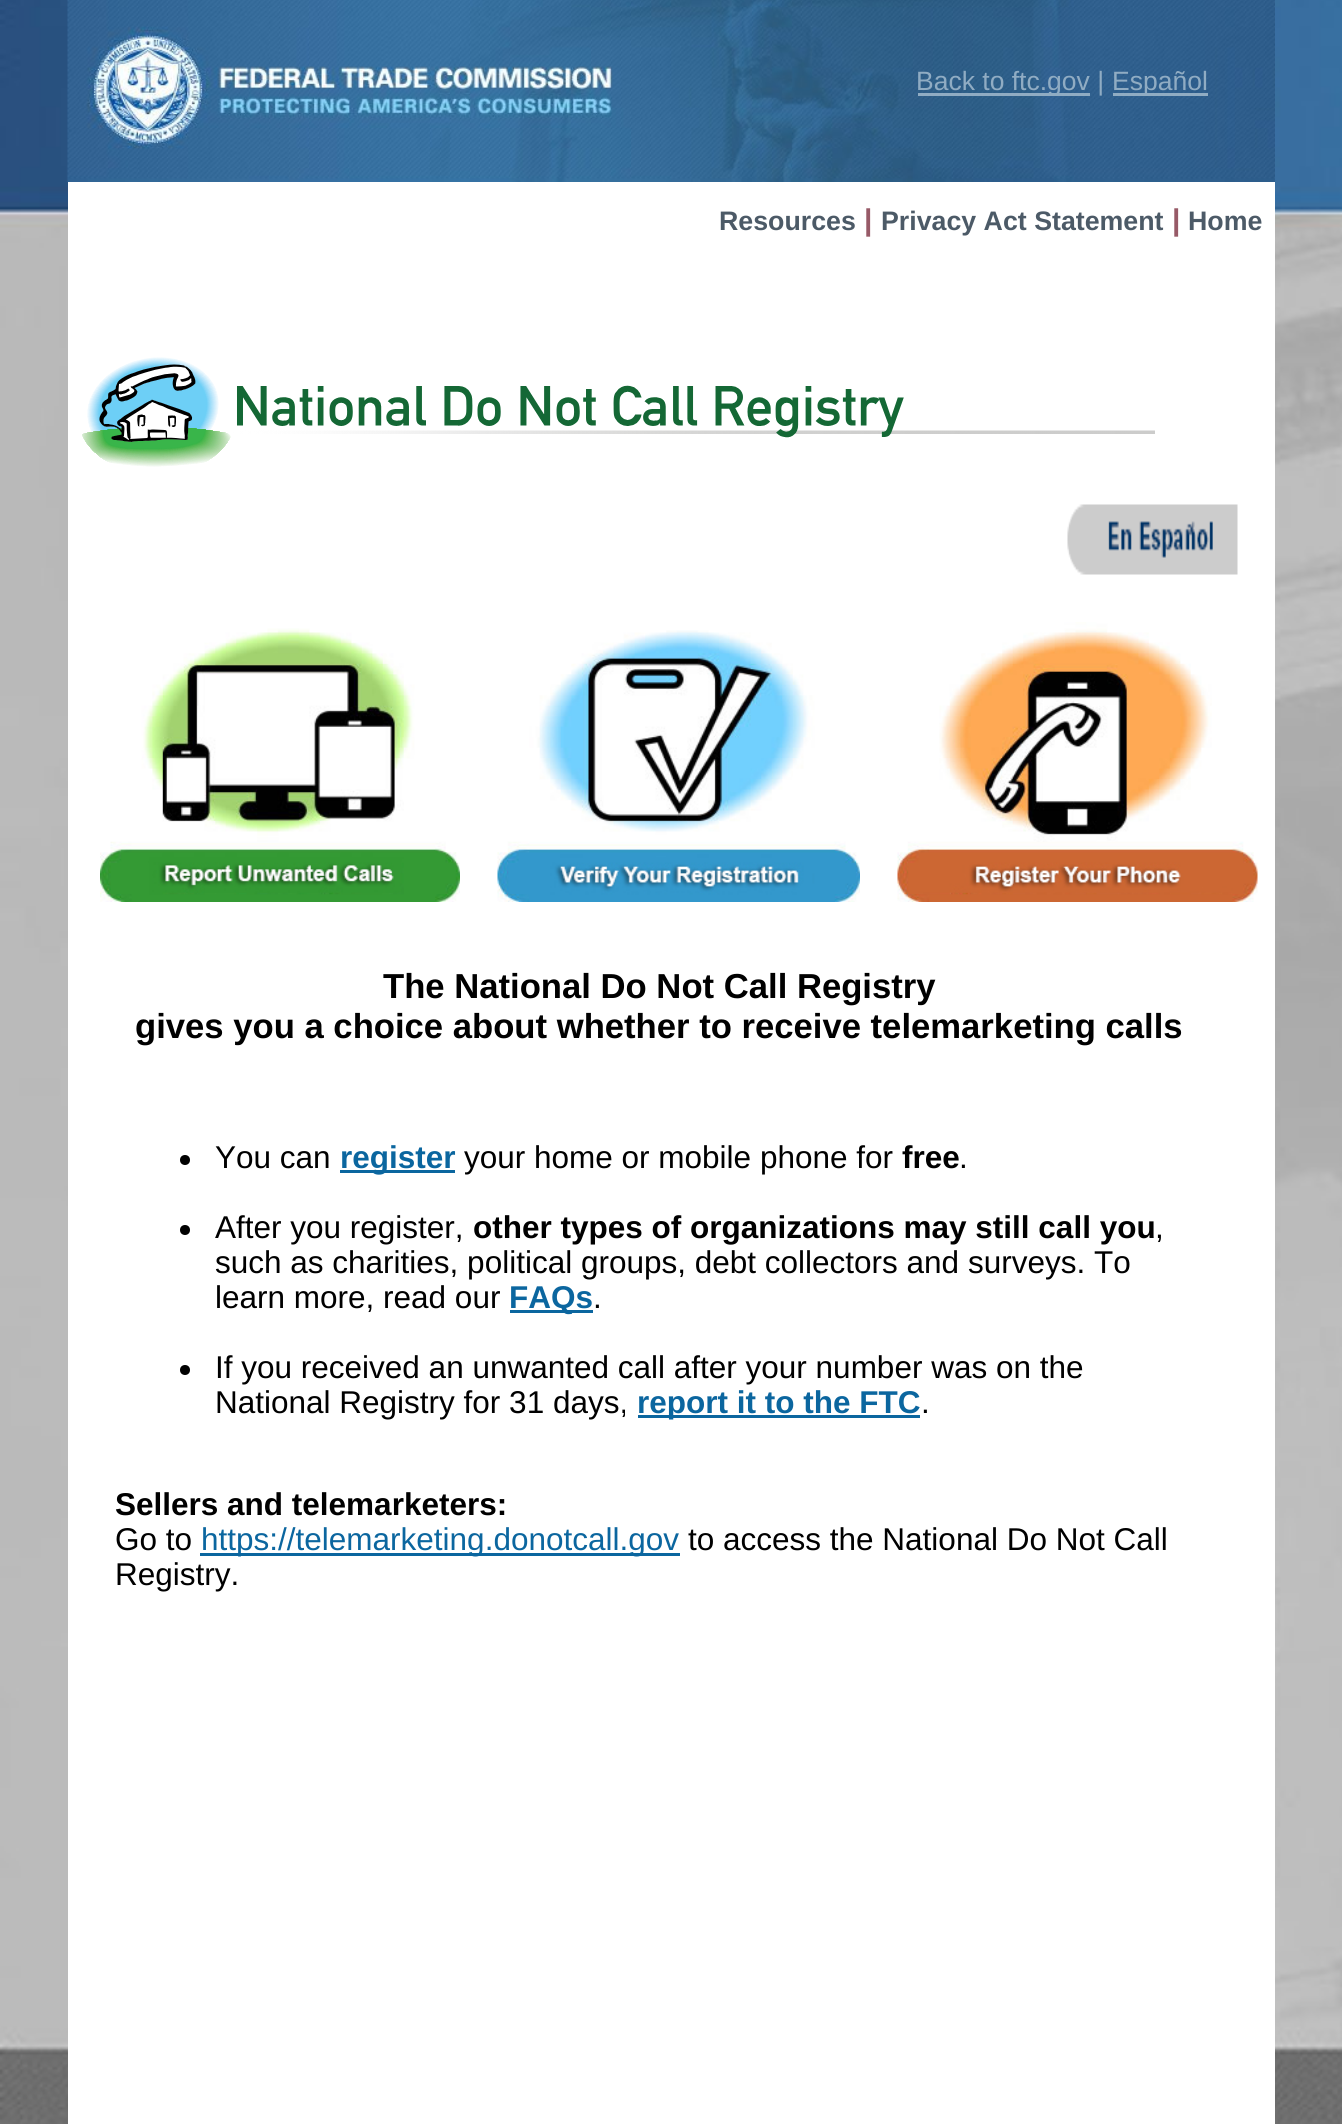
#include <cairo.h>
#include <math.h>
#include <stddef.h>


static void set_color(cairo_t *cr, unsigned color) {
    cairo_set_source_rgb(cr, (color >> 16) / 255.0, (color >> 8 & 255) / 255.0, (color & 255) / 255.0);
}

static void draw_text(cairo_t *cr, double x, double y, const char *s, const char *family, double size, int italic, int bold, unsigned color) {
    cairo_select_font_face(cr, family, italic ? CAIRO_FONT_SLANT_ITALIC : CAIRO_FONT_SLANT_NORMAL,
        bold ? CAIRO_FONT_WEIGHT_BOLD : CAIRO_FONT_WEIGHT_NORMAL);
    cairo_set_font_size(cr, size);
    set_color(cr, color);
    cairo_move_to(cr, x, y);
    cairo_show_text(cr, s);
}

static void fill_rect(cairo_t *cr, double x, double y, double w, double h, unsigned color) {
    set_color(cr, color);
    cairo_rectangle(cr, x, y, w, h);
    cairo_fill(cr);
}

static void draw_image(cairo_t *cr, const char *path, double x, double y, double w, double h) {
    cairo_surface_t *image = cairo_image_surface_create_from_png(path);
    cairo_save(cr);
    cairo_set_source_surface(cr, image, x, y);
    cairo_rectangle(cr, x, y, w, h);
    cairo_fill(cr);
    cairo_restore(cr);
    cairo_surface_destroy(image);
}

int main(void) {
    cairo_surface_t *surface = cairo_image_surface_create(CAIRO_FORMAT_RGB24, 1342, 2124);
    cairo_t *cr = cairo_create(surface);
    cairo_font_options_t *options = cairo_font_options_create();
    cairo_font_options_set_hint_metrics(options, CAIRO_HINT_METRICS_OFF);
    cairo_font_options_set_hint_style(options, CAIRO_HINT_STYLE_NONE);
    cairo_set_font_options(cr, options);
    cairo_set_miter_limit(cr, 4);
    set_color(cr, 0xFFFFFF);
    cairo_paint(cr);
    draw_image(cr, "assets/img1.png", 0, 0, 1342, 2124);
    draw_image(cr, "assets/img2.png", 67, 0, 1208, 182);
    fill_rect(cr, 918, 93, 172, 3, 0x90ACC3);
    draw_text(cr, 916, 90, "Back to ftc.gov |", "Liberation Sans", 26.5, 0, 0, 0x90ACC3);
    fill_rect(cr, 1113, 93, 95, 3, 0x90ACC3);
    draw_text(cr, 1112, 90, "Español", "Liberation Sans", 26.5, 0, 0, 0x90ACC3);
    fill_rect(cr, 68, 182, 1207, 1942, 0xFFFFFF);
    draw_text(cr, 719, 230, "Resources", "Liberation Sans", 26.75, 0, 1, 0x4C5A67);
    draw_text(cr, 864, 230, "|", "Liberation Sans", 30, 0, 1, 0x975A67);
    draw_text(cr, 881, 230, "Privacy Act Statement", "Liberation Sans", 26.75, 0, 1, 0x4C5A67);
    draw_text(cr, 1172, 230, "|", "Liberation Sans", 30, 0, 1, 0x975A67);
    draw_text(cr, 1188, 230, "Home", "Liberation Sans", 26.75, 0, 1, 0x4C5A67);
    draw_image(cr, "assets/img3.png", 82, 357, 1073, 110);
    draw_image(cr, "assets/img4.png", 1067, 504, 171, 71);
    draw_image(cr, "assets/img5.png", 100, 628, 360, 274);
    draw_image(cr, "assets/img6.png", 497, 630, 363, 272);
    draw_image(cr, "assets/img7.png", 897, 622, 361, 280);
    draw_text(cr, 383, 998, "The National Do Not Call Registry", "Liberation Sans", 34.65, 0, 1, 0x000000);
    draw_text(cr, 135, 1038, "gives you a choice about whether to receive telemarketing calls", "Liberation Sans", 34.65, 0, 1, 0x000000);
    cairo_new_path(cr);
    cairo_arc(cr, 185, 1160, 5, 0, 2 * M_PI);
    cairo_fill(cr);
    draw_text(cr, 215, 1168, "You can", "Liberation Sans", 31.5, 0, 0, 0x000000);
    fill_rect(cr, 340, 1170, 115, 3, 0x0B669F);
    draw_text(cr, 340, 1168, "register", "Liberation Sans", 31.5, 0, 1, 0x0B669F);
    draw_text(cr, 464, 1168, "your home or mobile phone for", "Liberation Sans", 31.5, 0, 0, 0x000000);
    draw_text(cr, 902, 1168, "free", "Liberation Sans", 31.5, 0, 1, 0x000000);
    draw_text(cr, 959, 1168, ".", "Liberation Sans", 31.5, 0, 0, 0x000000);
    cairo_new_path(cr);
    cairo_arc(cr, 185, 1230, 5, 0, 2 * M_PI);
    cairo_fill(cr);
    draw_text(cr, 215, 1238, "After you register,", "Liberation Sans", 31.5, 0, 0, 0x000000);
    draw_text(cr, 473, 1238, "other types of organizations may still call you", "Liberation Sans", 31.5, 0, 1, 0x000000);
    draw_text(cr, 1155, 1238, ",", "Liberation Sans", 31.5, 0, 0, 0x000000);
    draw_text(cr, 215, 1273, "such as charities, political groups, debt collectors and surveys. To", "Liberation Sans", 31.5, 0, 0, 0x000000);
    draw_text(cr, 215, 1308, "learn more, read our", "Liberation Sans", 31.5, 0, 0, 0x000000);
    fill_rect(cr, 510, 1310, 83, 3, 0x0B669F);
    draw_text(cr, 509, 1308, "FAQs", "Liberation Sans", 31.5, 0, 1, 0x0B669F);
    draw_text(cr, 593, 1308, ".", "Liberation Sans", 31.5, 0, 0, 0x000000);
    cairo_new_path(cr);
    cairo_arc(cr, 185, 1370, 5, 0, 2 * M_PI);
    cairo_fill(cr);
    draw_text(cr, 215, 1378, "If you received an unwanted call after your number was on the", "Liberation Sans", 31.5, 0, 0, 0x000000);
    draw_text(cr, 215, 1413, "National Registry for 31 days,", "Liberation Sans", 31.5, 0, 0, 0x000000);
    fill_rect(cr, 638, 1415, 282, 3, 0x0B669F);
    draw_text(cr, 637, 1413, "report it to the FTC", "Liberation Sans", 31.5, 0, 1, 0x0B669F);
    draw_text(cr, 921, 1413, ".", "Liberation Sans", 31.5, 0, 0, 0x000000);
    draw_text(cr, 115, 1515, "Sellers and telemarketers:", "Liberation Sans", 31.5, 0, 1, 0x000000);
    draw_text(cr, 115, 1550, "Go to", "Liberation Sans", 31.5, 0, 0, 0x000000);
    fill_rect(cr, 200, 1553, 480, 3, 0x0B669F);
    draw_text(cr, 201, 1550, "https://telemarketing.donotcall.gov", "Liberation Sans", 31.5, 0, 0, 0x0B669F);
    draw_text(cr, 688, 1550, "to access the National Do Not Call", "Liberation Sans", 31.5, 0, 0, 0x000000);
    draw_text(cr, 115, 1585, "Registry.", "Liberation Sans", 31.5, 0, 0, 0x000000);
    cairo_surface_write_to_png(surface, "output.png");
    cairo_font_options_destroy(options);
    cairo_destroy(cr);
    cairo_surface_destroy(surface);
    return 0;
}
